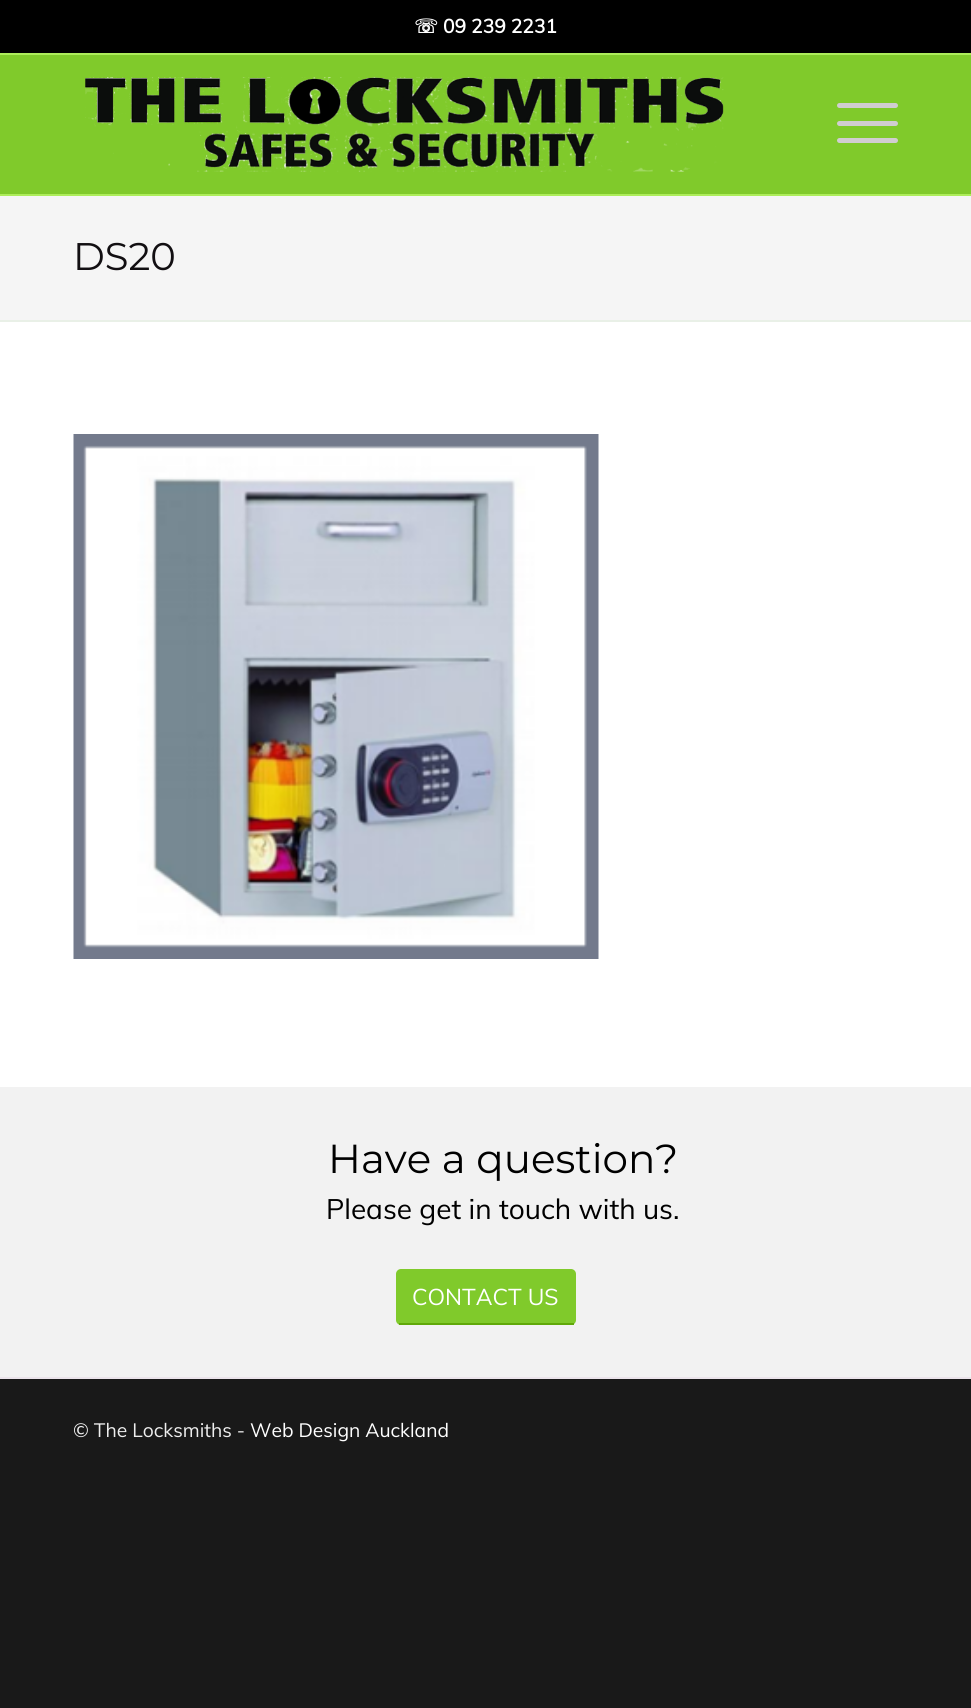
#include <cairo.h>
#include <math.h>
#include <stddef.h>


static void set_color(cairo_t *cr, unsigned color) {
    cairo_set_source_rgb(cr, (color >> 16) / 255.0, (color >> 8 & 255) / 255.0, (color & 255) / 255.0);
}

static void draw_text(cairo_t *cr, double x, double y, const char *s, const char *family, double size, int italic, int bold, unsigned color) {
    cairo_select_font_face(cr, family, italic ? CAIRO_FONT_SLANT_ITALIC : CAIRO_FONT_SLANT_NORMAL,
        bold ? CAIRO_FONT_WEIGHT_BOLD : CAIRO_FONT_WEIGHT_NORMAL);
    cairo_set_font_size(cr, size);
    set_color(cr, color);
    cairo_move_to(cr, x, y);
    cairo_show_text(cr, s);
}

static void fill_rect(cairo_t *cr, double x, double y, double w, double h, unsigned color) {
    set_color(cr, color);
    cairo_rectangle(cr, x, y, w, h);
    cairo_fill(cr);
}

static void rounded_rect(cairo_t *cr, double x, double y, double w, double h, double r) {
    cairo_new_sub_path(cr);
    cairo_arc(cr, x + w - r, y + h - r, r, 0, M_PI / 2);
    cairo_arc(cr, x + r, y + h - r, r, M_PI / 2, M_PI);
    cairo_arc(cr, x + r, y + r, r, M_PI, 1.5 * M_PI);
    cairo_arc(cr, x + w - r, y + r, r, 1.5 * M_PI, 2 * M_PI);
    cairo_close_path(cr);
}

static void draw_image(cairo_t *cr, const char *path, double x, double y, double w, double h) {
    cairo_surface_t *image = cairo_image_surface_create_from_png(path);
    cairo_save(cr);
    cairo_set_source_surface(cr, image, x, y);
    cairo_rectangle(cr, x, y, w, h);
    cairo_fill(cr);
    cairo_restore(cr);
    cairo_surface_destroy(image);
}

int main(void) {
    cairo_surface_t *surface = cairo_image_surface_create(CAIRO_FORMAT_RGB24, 971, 1708);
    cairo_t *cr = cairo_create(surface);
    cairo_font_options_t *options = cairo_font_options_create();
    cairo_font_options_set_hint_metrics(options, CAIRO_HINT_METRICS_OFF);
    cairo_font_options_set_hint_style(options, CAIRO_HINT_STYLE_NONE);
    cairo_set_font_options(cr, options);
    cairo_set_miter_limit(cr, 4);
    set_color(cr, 0x191919);
    cairo_paint(cr);
    fill_rect(cr, 0, 0, 971, 53, 0x000000);
    fill_rect(cr, 0, 53, 971, 2, 0xADED5A);
    draw_text(cr, 414, 33, "☏", "DejaVu Sans", 19.25, 0, 1, 0xFFFFFF);
    draw_text(cr, 443, 33, "09 239 2231", "Muli", 19.25, 0, 1, 0xFFFFFF);
    fill_rect(cr, 0, 55, 971, 139, 0x80CA2B);
    fill_rect(cr, 0, 194, 971, 2, 0xADED5A);
    draw_image(cr, "assets/img1.png", 85, 77, 639, 95);
    set_color(cr, 0xD1CDD1);
    rounded_rect(cr, 837, 121, 61, 5, 2.5);
    cairo_fill(cr);
    rounded_rect(cr, 837, 103, 61, 5, 2.5);
    cairo_fill(cr);
    rounded_rect(cr, 837, 138, 61, 5, 2.5);
    cairo_fill(cr);
    fill_rect(cr, 0, 196, 971, 124, 0xF5F5F5);
    draw_text(cr, 73, 270, "DS20", "Montserrat Thin", 38.5, 0, 0, 0x120F12);
    fill_rect(cr, 0, 322, 971, 765, 0xFFFFFF);
    fill_rect(cr, 0, 320, 971, 2, 0xE9F0E7);
    draw_image(cr, "assets/img2.png", 73, 434, 526, 525);
    fill_rect(cr, 0, 1087, 971, 290, 0xF2F2F2);
    draw_text(cr, 328, 1173, "Have a question?", "Montserrat Thin", 40.5, 0, 0, 0x000000);
    draw_text(cr, 326, 1219, "Please get in touch with us.", "Muli", 28, 0, 0, 0x000000);
    set_color(cr, 0x80CA2B);
    rounded_rect(cr, 396, 1269, 180, 56, 5);
    cairo_fill(cr);
    fill_rect(cr, 399, 1323, 175, 2, 0x60A809);
    draw_text(cr, 412, 1305, "CONTACT US", "Muli", 22.75, 0, 0, 0xFFFFFF);
    fill_rect(cr, 0, 1377, 971, 2, 0xEBE4EB);
    draw_text(cr, 73, 1437, "© The Locksmiths -", "Muli", 19.25, 0, 0, 0xEEEEEE);
    draw_text(cr, 250, 1437, "Web Design Auckland", "Muli", 19.25, 0, 0, 0xFFFFFF);
    cairo_surface_write_to_png(surface, "output.png");
    cairo_font_options_destroy(options);
    cairo_destroy(cr);
    cairo_surface_destroy(surface);
    return 0;
}
